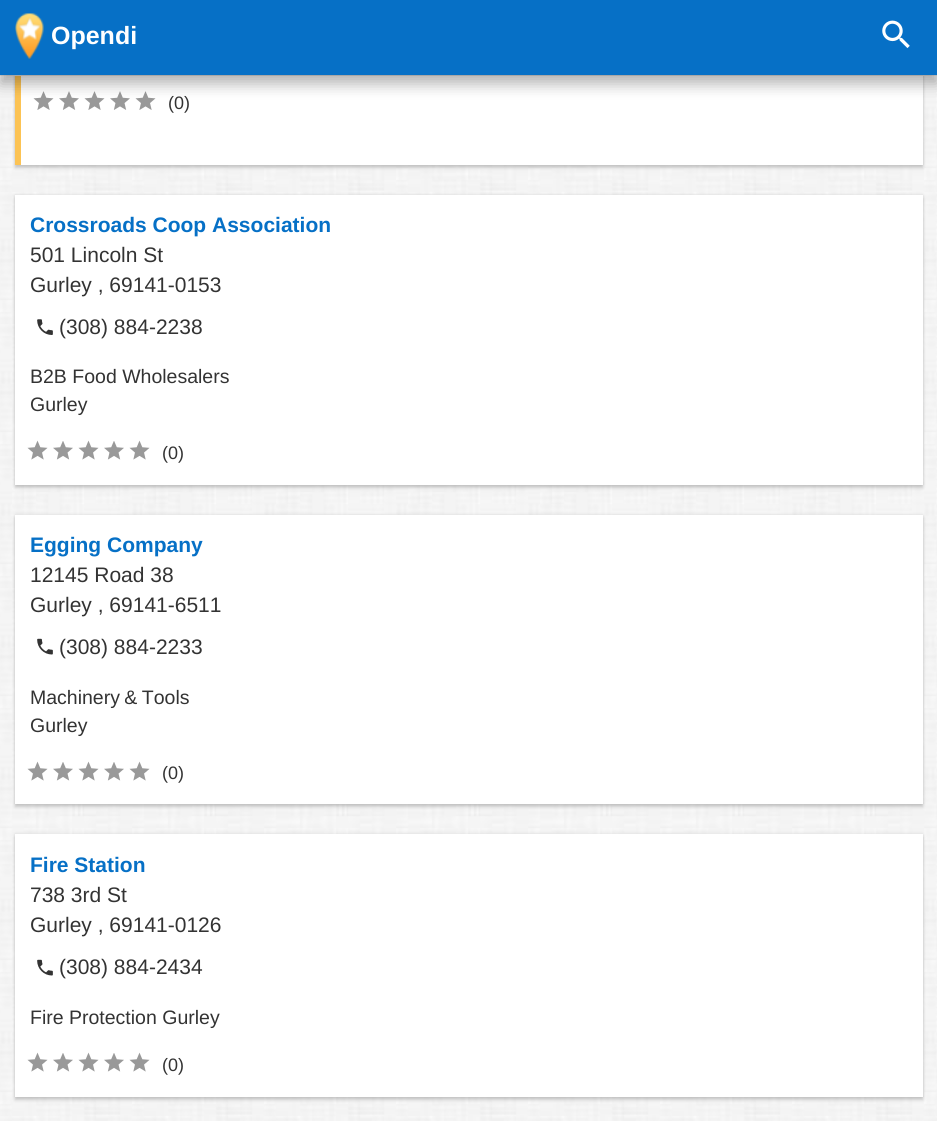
#include <cairo.h>
#include <math.h>
#include <stddef.h>


static void set_color(cairo_t *cr, unsigned color) {
    cairo_set_source_rgb(cr, (color >> 16) / 255.0, (color >> 8 & 255) / 255.0, (color & 255) / 255.0);
}

static void draw_text(cairo_t *cr, double x, double y, const char *s, const char *family, double size, int italic, int bold, unsigned color) {
    cairo_select_font_face(cr, family, italic ? CAIRO_FONT_SLANT_ITALIC : CAIRO_FONT_SLANT_NORMAL,
        bold ? CAIRO_FONT_WEIGHT_BOLD : CAIRO_FONT_WEIGHT_NORMAL);
    cairo_set_font_size(cr, size);
    set_color(cr, color);
    cairo_move_to(cr, x, y);
    cairo_show_text(cr, s);
}

static void draw_spaced(cairo_t *cr, double x, double y, const char *s, double letter, double word) {
    cairo_move_to(cr, x, y);
    while (*s) {
        char ch[5] = {0};
        int n = 0;
        do ch[n++] = *s++; while ((*s & 0xC0) == 0x80);
        cairo_show_text(cr, ch);
        cairo_rel_move_to(cr, letter + word * (*ch == ' '), 0);
    }
}

static void fill_rect(cairo_t *cr, double x, double y, double w, double h, unsigned color) {
    set_color(cr, color);
    cairo_rectangle(cr, x, y, w, h);
    cairo_fill(cr);
}

static void rounded_rect(cairo_t *cr, double x, double y, double w, double h, double r) {
    cairo_new_sub_path(cr);
    cairo_arc(cr, x + w - r, y + h - r, r, 0, M_PI / 2);
    cairo_arc(cr, x + r, y + h - r, r, M_PI / 2, M_PI);
    cairo_arc(cr, x + r, y + r, r, M_PI, 1.5 * M_PI);
    cairo_arc(cr, x + w - r, y + r, r, 1.5 * M_PI, 2 * M_PI);
    cairo_close_path(cr);
}

static void draw_shadow(cairo_t *cr, double x, double y, double w, double h, double r, double blur, double alpha) {
    cairo_push_group_with_content(cr, CAIRO_CONTENT_ALPHA);
    cairo_set_operator(cr, CAIRO_OPERATOR_SOURCE);
    for (int i = 15; i >= -15 && fmin(w, h) + blur * i / 3 > 0; i -= 2) {
        double e = blur * i / 6;
        cairo_set_source_rgba(cr, 0, 0, 0, alpha * erfc((i - 1) / 8.5) / 2);
        rounded_rect(cr, x - e, y - e, w + 2 * e, h + 2 * e, fmax(0, fmin(r + e + blur * .6, fmin(w, h) / 2 + e)));
        cairo_fill(cr);
    }
    cairo_pattern_t *soft = cairo_pop_group(cr);
    cairo_mask(cr, soft);
    cairo_pattern_destroy(soft);
}

static void draw_image(cairo_t *cr, const char *path, double x, double y, double w, double h) {
    cairo_surface_t *image = cairo_image_surface_create_from_png(path);
    cairo_save(cr);
    cairo_set_source_surface(cr, image, x, y);
    cairo_rectangle(cr, x, y, w, h);
    cairo_fill(cr);
    cairo_restore(cr);
    cairo_surface_destroy(image);
}

int main(void) {
    cairo_surface_t *surface = cairo_image_surface_create(CAIRO_FORMAT_RGB24, 937, 1121);
    cairo_t *cr = cairo_create(surface);
    cairo_font_options_t *options = cairo_font_options_create();
    cairo_font_options_set_hint_metrics(options, CAIRO_HINT_METRICS_OFF);
    cairo_font_options_set_hint_style(options, CAIRO_HINT_STYLE_NONE);
    cairo_set_font_options(cr, options);
    cairo_set_miter_limit(cr, 4);
    set_color(cr, 0xFFFFFF);
    cairo_paint(cr);
    draw_image(cr, "assets/img1.png", 0, 76, 937, 1045);
    set_color(cr, 0x000000);
    draw_shadow(cr, 15, -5, 908, 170, 0, 1.5, 0.12);
    draw_shadow(cr, 15, -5, 908, 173, 0, 1.5, 0.16);
    fill_rect(cr, 0, 75, 937, 1, 0xE0E0E0);
    fill_rect(cr, 21, 76, 902, 89, 0xFFFFFF);
    fill_rect(cr, 15, 76, 6, 89, 0xFCC354);
    draw_image(cr, "assets/img4.png", 33, 91, 21, 19);
    draw_image(cr, "assets/img5.png", 59, 91, 20, 19);
    draw_image(cr, "assets/img4.png", 84, 91, 21, 19);
    draw_image(cr, "assets/img5.png", 110, 91, 20, 19);
    draw_image(cr, "assets/img4.png", 135, 91, 21, 19);
    set_color(cr, 0x000000);
    draw_shadow(cr, 0, 9, 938, 75, 0, 7.5, 0.3);
    fill_rect(cr, 0, 0, 937, 75, 0x0670C6);
    draw_image(cr, "assets/img2.png", 15, 13, 29, 46);
    draw_text(cr, 51, 44, "Opendi", "Liberation Sans", 25, 0, 1, 0xFFFFFF);
    draw_image(cr, "assets/img3.png", 882, 20, 28, 29);
    draw_text(cr, 168, 109, "(0)", "Liberation Sans", 18, 0, 0, 0x333333);
    set_color(cr, 0x000000);
    draw_shadow(cr, 15, 195, 908, 290, 0, 1.5, 0.12);
    draw_shadow(cr, 15, 198, 908, 290, 0, 1.5, 0.16);
    fill_rect(cr, 15, 195, 908, 290, 0xFFFFFF);
    draw_text(cr, 30, 232, "Crossroads Coop Association", "Liberation Sans", 21, 0, 1, 0x0670C6);
    draw_text(cr, 30, 262, "501 Lincoln St", "Liberation Sans", 21, 0, 0, 0x333333);
    draw_text(cr, 30, 292, "Gurley , 69141-0153", "Liberation Sans", 21, 0, 0, 0x333333);
    draw_image(cr, "assets/img6.png", 37, 319, 16, 16);
    draw_text(cr, 59, 334, "(308) 884-2238", "Liberation Sans", 21, 0, 0, 0x333333);
    draw_text(cr, 30, 383, "B2B Food Wholesalers", "Liberation Sans", 19.5, 0, 0, 0x333333);
    draw_text(cr, 30, 411, "Gurley", "Liberation Sans", 19.5, 0, 0, 0x333333);
    draw_image(cr, "assets/img7.png", 27, 440, 21, 20);
    draw_image(cr, "assets/img8.png", 53, 441, 20, 19);
    draw_image(cr, "assets/img7.png", 78, 440, 21, 20);
    draw_image(cr, "assets/img8.png", 104, 441, 20, 19);
    draw_image(cr, "assets/img7.png", 129, 440, 21, 20);
    draw_text(cr, 162, 459, "(0)", "Liberation Sans", 18, 0, 0, 0x333333);
    set_color(cr, 0x000000);
    draw_shadow(cr, 15, 515, 908, 289, 0, 1.5, 0.12);
    draw_shadow(cr, 15, 518, 908, 289, 0, 1.5, 0.16);
    fill_rect(cr, 15, 515, 908, 289, 0xFFFFFF);
    draw_text(cr, 30, 552, "Egging Company", "Liberation Sans", 21, 0, 1, 0x0670C6);
    draw_text(cr, 30, 582, "12145 Road 38", "Liberation Sans", 21, 0, 0, 0x333333);
    draw_text(cr, 30, 612, "Gurley , 69141-6511", "Liberation Sans", 21, 0, 0, 0x333333);
    draw_image(cr, "assets/img9.png", 37, 638, 16, 17);
    draw_text(cr, 59, 654, "(308) 884-2233", "Liberation Sans", 21, 0, 0, 0x333333);
    cairo_set_font_size(cr, 19.5);
    draw_spaced(cr, 30, 704, "Machinery & Tools", 0, -1);
    draw_text(cr, 30, 732, "Gurley", "Liberation Sans", 19.5, 0, 0, 0x333333);
    draw_image(cr, "assets/img7.png", 27, 761, 21, 20);
    draw_image(cr, "assets/img8.png", 53, 762, 20, 19);
    draw_image(cr, "assets/img7.png", 78, 761, 21, 20);
    draw_image(cr, "assets/img8.png", 104, 762, 20, 19);
    draw_image(cr, "assets/img7.png", 129, 761, 21, 20);
    draw_text(cr, 162, 779, "(0)", "Liberation Sans", 18, 0, 0, 0x333333);
    set_color(cr, 0x000000);
    draw_shadow(cr, 15, 834, 908, 263, 0, 1.5, 0.12);
    draw_shadow(cr, 15, 837, 908, 263, 0, 1.5, 0.16);
    fill_rect(cr, 15, 834, 908, 263, 0xFFFFFF);
    draw_text(cr, 30, 872, "Fire Station", "Liberation Sans", 21, 0, 1, 0x0670C6);
    draw_text(cr, 30, 902, "738 3rd St", "Liberation Sans", 21, 0, 0, 0x333333);
    draw_text(cr, 30, 932, "Gurley , 69141-0126", "Liberation Sans", 21, 0, 0, 0x333333);
    draw_image(cr, "assets/img9.png", 37, 959, 16, 17);
    draw_text(cr, 59, 974, "(308) 884-2434", "Liberation Sans", 21, 0, 0, 0x333333);
    draw_text(cr, 30, 1024, "Fire Protection Gurley", "Liberation Sans", 19.5, 0, 0, 0x333333);
    draw_image(cr, "assets/img7.png", 27, 1052, 21, 20);
    draw_image(cr, "assets/img8.png", 53, 1053, 20, 19);
    draw_image(cr, "assets/img7.png", 78, 1052, 21, 20);
    draw_image(cr, "assets/img8.png", 104, 1053, 20, 19);
    draw_image(cr, "assets/img7.png", 129, 1052, 21, 20);
    draw_text(cr, 162, 1071, "(0)", "Liberation Sans", 18, 0, 0, 0x333333);
    cairo_surface_write_to_png(surface, "output.png");
    cairo_font_options_destroy(options);
    cairo_destroy(cr);
    cairo_surface_destroy(surface);
    return 0;
}
